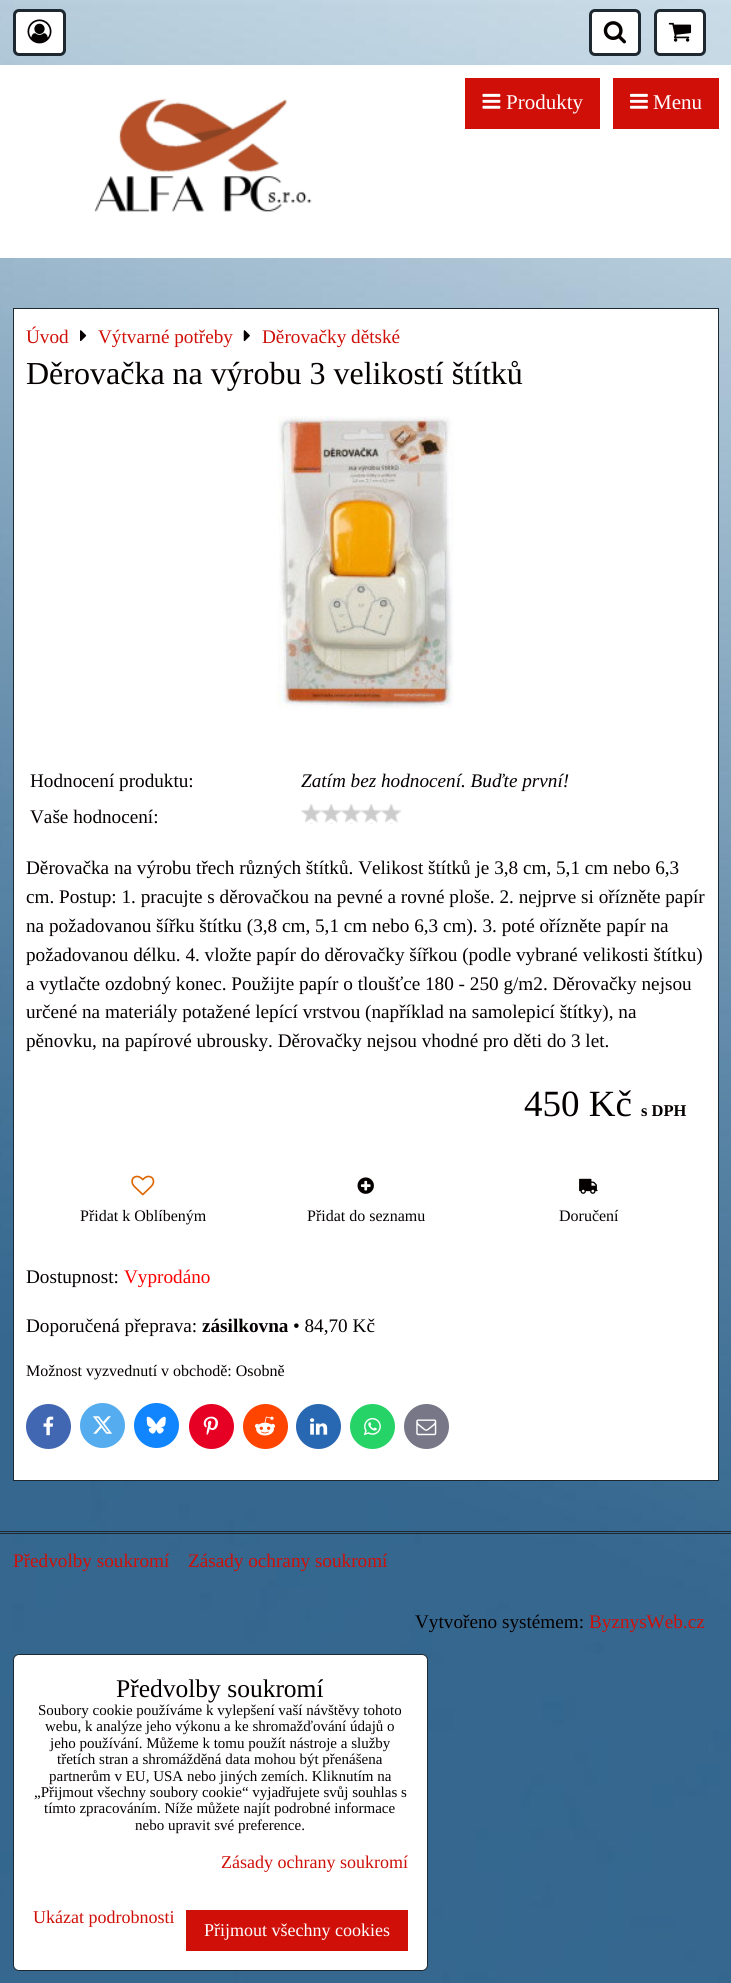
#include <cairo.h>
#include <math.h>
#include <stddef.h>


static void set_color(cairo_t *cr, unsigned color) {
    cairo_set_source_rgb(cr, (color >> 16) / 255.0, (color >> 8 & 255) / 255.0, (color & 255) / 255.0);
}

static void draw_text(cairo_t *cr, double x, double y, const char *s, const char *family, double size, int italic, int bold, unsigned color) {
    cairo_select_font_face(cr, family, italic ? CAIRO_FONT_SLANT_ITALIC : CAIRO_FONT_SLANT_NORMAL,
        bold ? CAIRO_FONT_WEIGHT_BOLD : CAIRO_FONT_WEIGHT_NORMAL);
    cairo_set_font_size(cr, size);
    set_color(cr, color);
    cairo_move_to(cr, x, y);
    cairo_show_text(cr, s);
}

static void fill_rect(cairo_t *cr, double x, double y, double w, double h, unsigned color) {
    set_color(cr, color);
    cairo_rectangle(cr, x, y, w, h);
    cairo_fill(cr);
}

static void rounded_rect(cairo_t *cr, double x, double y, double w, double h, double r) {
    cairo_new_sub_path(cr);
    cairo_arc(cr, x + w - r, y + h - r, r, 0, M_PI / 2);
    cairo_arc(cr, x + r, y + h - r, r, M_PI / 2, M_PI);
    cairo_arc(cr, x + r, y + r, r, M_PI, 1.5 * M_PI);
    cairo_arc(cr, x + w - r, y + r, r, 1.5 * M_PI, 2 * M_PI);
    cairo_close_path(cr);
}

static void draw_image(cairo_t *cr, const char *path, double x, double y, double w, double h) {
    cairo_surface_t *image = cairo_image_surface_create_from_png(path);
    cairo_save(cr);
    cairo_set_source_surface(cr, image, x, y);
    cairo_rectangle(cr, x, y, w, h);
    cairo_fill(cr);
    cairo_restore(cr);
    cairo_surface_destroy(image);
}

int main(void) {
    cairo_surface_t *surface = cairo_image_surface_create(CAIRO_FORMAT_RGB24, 731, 1983);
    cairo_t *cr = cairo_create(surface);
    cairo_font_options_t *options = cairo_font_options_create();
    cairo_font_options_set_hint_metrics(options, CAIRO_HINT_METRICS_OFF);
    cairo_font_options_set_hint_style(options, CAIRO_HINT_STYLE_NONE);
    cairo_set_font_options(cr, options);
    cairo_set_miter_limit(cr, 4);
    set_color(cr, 0xFFFFFF);
    cairo_paint(cr);
    draw_image(cr, "assets/img1.png", 0, 0, 731, 1983);
    set_color(cr, 0xFFFFFF);
    rounded_rect(cr, 14.5, 10.5, 50, 44, 4.5);
    cairo_fill_preserve(cr);
    set_color(cr, 0x1D2830);
    cairo_set_line_width(cr, 3);
    cairo_stroke(cr);
    draw_image(cr, "assets/img2.png", 27, 19, 25, 25);
    set_color(cr, 0xFFFFFF);
    rounded_rect(cr, 590.5, 10.5, 49, 44, 4.5);
    cairo_fill_preserve(cr);
    set_color(cr, 0x1D2830);
    cairo_stroke(cr);
    draw_image(cr, "assets/img3.png", 603, 21, 23, 23);
    set_color(cr, 0xFFFFFF);
    rounded_rect(cr, 655.5, 10.5, 49, 44, 4.5);
    cairo_fill_preserve(cr);
    set_color(cr, 0x1D2830);
    cairo_stroke(cr);
    draw_image(cr, "assets/img4.png", 668, 22, 24, 20);
    fill_rect(cr, 0, 65, 731, 193, 0xFFFFFF);
    draw_image(cr, "assets/img5.png", 94, 98, 218, 114);
    fill_rect(cr, 465, 78, 135, 51, 0xCF0F08);
    draw_image(cr, "assets/img6.png", 482, 93, 19, 16);
    draw_text(cr, 506, 109, "Produkty", "Liberation Serif", 21, 0, 0, 0xFFFFFF);
    fill_rect(cr, 613, 78, 106, 51, 0xCF0F08);
    draw_image(cr, "assets/img7.png", 630, 93, 18, 16);
    draw_text(cr, 653, 109, "Menu", "Liberation Serif", 21, 0, 0, 0xFFFFFF);
    cairo_rectangle(cr, 13.5, 308.5, 705, 1172);
    cairo_fill_preserve(cr);
    set_color(cr, 0x1D2830);
    cairo_set_line_width(cr, 1);
    cairo_stroke(cr);
    draw_text(cr, 26, 343, "Úvod", "Liberation Serif", 19.2, 0, 0, 0xCF0F08);
    draw_image(cr, "assets/img8.png", 80, 330, 7, 12);
    draw_text(cr, 98, 343, "Výtvarné potřeby", "Liberation Serif", 19.2, 0, 0, 0xCF0F08);
    draw_image(cr, "assets/img9.png", 243, 330, 7, 12);
    draw_text(cr, 262, 343, "Děrovačky dětské", "Liberation Serif", 19.2, 0, 0, 0xCF0F08);
    draw_text(cr, 26, 384, "Děrovačka na výrobu 3 velikostí štítků", "Liberation Serif", 32, 0, 0, 0x050000);
    draw_image(cr, "assets/img10.png", 277, 416, 177, 293);
    draw_text(cr, 30, 787, "Hodnocení produktu:", "Liberation Serif", 19.2, 0, 0, 0x050000);
    draw_text(cr, 301, 787, "Zatím bez hodnocení. Buďte první!", "Liberation Serif", 19.2, 1, 0, 0x050000);
    draw_text(cr, 30, 823, "Vaše hodnocení:", "Liberation Serif", 19.2, 0, 0, 0x050000);
    draw_image(cr, "assets/img11.png", 301, 804, 101, 20);
    draw_text(cr, 26, 874, "Děrovačka na výrobu třech různých štítků. Velikost štítků je 3,8 cm, 5,1 cm nebo 6,3", "Liberation Serif", 19.2, 0, 0, 0x050000);
    draw_text(cr, 26, 903, "cm. Postup: 1. pracujte s děrovačkou na pevné a rovné ploše. 2. nejprve si ořízněte papír", "Liberation Serif", 19.2, 0, 0, 0x050000);
    draw_text(cr, 26, 932, "na požadovanou šířku štítku (3,8 cm, 5,1 cm nebo 6,3 cm). 3. poté ořízněte papír na", "Liberation Serif", 19.2, 0, 0, 0x050000);
    draw_text(cr, 26, 961, "požadovanou délku. 4. vložte papír do děrovačky šířkou (podle vybrané velikosti štítku)", "Liberation Serif", 19.2, 0, 0, 0x050000);
    draw_text(cr, 26, 990, "a vytlačte ozdobný konec. Použijte papír o tloušťce 180 - 250 g/m2. Děrovačky nejsou", "Liberation Serif", 19.2, 0, 0, 0x050000);
    draw_text(cr, 26, 1018, "určené na materiály potažené lepící vrstvou (například na samolepicí štítky), na", "Liberation Serif", 19.2, 0, 0, 0x050000);
    draw_text(cr, 26, 1047, "pěnovku, na papírové ubrousky. Děrovačky nejsou vhodné pro děti do 3 let.", "Liberation Serif", 19.2, 0, 0, 0x050000);
    draw_text(cr, 524, 1116, "450 Kč", "Liberation Serif", 37, 0, 0, 0x050000);
    draw_text(cr, 641, 1116, "s DPH", "Liberation Serif", 16.5, 0, 1, 0x050000);
    draw_image(cr, "assets/img12.png", 131, 1175, 24, 21);
    draw_text(cr, 80, 1221, "Přidat k Oblíbeným", "Liberation Serif", 16, 0, 0, 0x050000);
    draw_image(cr, "assets/img13.png", 357, 1177, 17, 17);
    draw_text(cr, 307, 1221, "Přidat do seznamu", "Liberation Serif", 16, 0, 0, 0x050000);
    draw_image(cr, "assets/img14.png", 579, 1178, 19, 16);
    draw_text(cr, 559, 1221, "Doručení", "Liberation Serif", 16, 0, 0, 0x050000);
    draw_text(cr, 26, 1283, "Dostupnost:", "Liberation Serif", 19.2, 0, 0, 0x050000);
    draw_text(cr, 124, 1283, "Vyprodáno", "Liberation Serif", 19.2, 0, 0, 0xFF0000);
    draw_text(cr, 26, 1332, "Doporučená přeprava:", "Liberation Serif", 19.2, 0, 0, 0x050000);
    draw_text(cr, 202, 1332, "zásilkovna", "Liberation Serif", 19.2, 0, 1, 0x050000);
    draw_text(cr, 293, 1332, "• 84,70 Kč", "Liberation Serif", 19.2, 0, 0, 0x050000);
    draw_text(cr, 26, 1376, "Možnost vyzvednutí v obchodě: Osobně", "Liberation Serif", 16, 0, 0, 0x050000);
    set_color(cr, 0x4267B2);
    cairo_new_path(cr);
    cairo_arc(cr, 48.5, 1426.5, 22.5, 0, 2 * M_PI);
    cairo_fill(cr);
    draw_image(cr, "assets/img15.png", 43, 1416, 11, 20);
    set_color(cr, 0x55ACEE);
    cairo_arc(cr, 102.5, 1425.5, 22.5, 0, 2 * M_PI);
    cairo_fill(cr);
    draw_image(cr, "assets/img16.png", 93, 1416, 19, 18);
    set_color(cr, 0x1185FE);
    cairo_arc(cr, 156.5, 1425.5, 22.5, 0, 2 * M_PI);
    cairo_fill(cr);
    draw_image(cr, "assets/img17.png", 146, 1416, 20, 18);
    set_color(cr, 0xE60023);
    cairo_arc(cr, 211.5, 1426.5, 22.5, 0, 2 * M_PI);
    cairo_fill(cr);
    draw_image(cr, "assets/img18.png", 203, 1416, 15, 20);
    set_color(cr, 0xFF4500);
    cairo_arc(cr, 265.5, 1426.5, 22.5, 0, 2 * M_PI);
    cairo_fill(cr);
    draw_image(cr, "assets/img19.png", 255, 1416, 20, 20);
    set_color(cr, 0x2867B2);
    cairo_arc(cr, 318.5, 1426.5, 22.5, 0, 2 * M_PI);
    cairo_fill(cr);
    draw_image(cr, "assets/img20.png", 310, 1418, 18, 17);
    set_color(cr, 0x25D366);
    cairo_arc(cr, 372.5, 1426.5, 22.5, 0, 2 * M_PI);
    cairo_fill(cr);
    draw_image(cr, "assets/img21.png", 363, 1418, 18, 18);
    set_color(cr, 0x777788);
    cairo_arc(cr, 426.5, 1426.5, 22.5, 0, 2 * M_PI);
    cairo_fill(cr);
    draw_image(cr, "assets/img22.png", 416, 1419, 21, 17);
    fill_rect(cr, 0, 1531, 731, 1, 0x1D2830);
    fill_rect(cr, 0, 1533, 731, 1, 0x1D2830);
    draw_text(cr, 13, 1567, "Předvolby soukromí", "Liberation Serif", 19.2, 0, 0, 0xCF0F08);
    draw_text(cr, 188, 1567, "Zásady ochrany soukromí", "Liberation Serif", 19.2, 0, 0, 0xCF0F08);
    draw_text(cr, 415, 1628, "Vytvořeno systémem:", "Liberation Serif", 19.2, 0, 0, 0x050000);
    draw_text(cr, 589, 1628, "ByznysWeb.cz", "Liberation Serif", 19.2, 0, 0, 0xCF0F08);
    set_color(cr, 0xFFFFFF);
    rounded_rect(cr, 13.5, 1654.5, 414, 316, 5.5);
    cairo_fill_preserve(cr);
    set_color(cr, 0x1D2830);
    cairo_stroke(cr);
    draw_text(cr, 116, 1697, "Předvolby soukromí", "Liberation Serif", 25.5, 0, 0, 0x050000);
    draw_text(cr, 38, 1715, "Soubory cookie používáme k vylepšení vaší návštěvy tohoto", "Liberation Serif", 15, 0, 0, 0x050000);
    draw_text(cr, 45, 1731, "webu, k analýze jeho výkonu a ke shromažďování údajů o", "Liberation Serif", 15, 0, 0, 0x050000);
    draw_text(cr, 50, 1748, "jeho používání. Můžeme k tomu použít nástroje a služby", "Liberation Serif", 15, 0, 0, 0x050000);
    draw_text(cr, 57, 1764, "třetích stran a shromážděná data mohou být přenášena", "Liberation Serif", 15, 0, 0, 0x050000);
    draw_text(cr, 49, 1781, "partnerům v EU, USA nebo jiných zemích. Kliknutím na", "Liberation Serif", 15, 0, 0, 0x050000);
    draw_text(cr, 34, 1797, "„Přijmout všechny soubory cookie“ vyjadřujete svůj souhlas s", "Liberation Serif", 15, 0, 0, 0x050000);
    draw_text(cr, 44, 1813, "tímto zpracováním. Níže můžete najít podrobné informace", "Liberation Serif", 15, 0, 0, 0x050000);
    draw_text(cr, 135, 1830, "nebo upravit své preference.", "Liberation Serif", 15, 0, 0, 0x050000);
    draw_text(cr, 221, 1868, "Zásady ochrany soukromí", "Liberation Serif", 18, 0, 0, 0xCF0F08);
    draw_text(cr, 33, 1923, "Ukázat podrobnosti", "Liberation Serif", 18, 0, 0, 0xCF0F08);
    fill_rect(cr, 186, 1910, 222, 41, 0xCF0F08);
    draw_text(cr, 204, 1936, "Přijmout všechny cookies", "Liberation Serif", 18, 0, 0, 0xFFFFFF);
    cairo_surface_write_to_png(surface, "output.png");
    cairo_font_options_destroy(options);
    cairo_destroy(cr);
    cairo_surface_destroy(surface);
    return 0;
}
